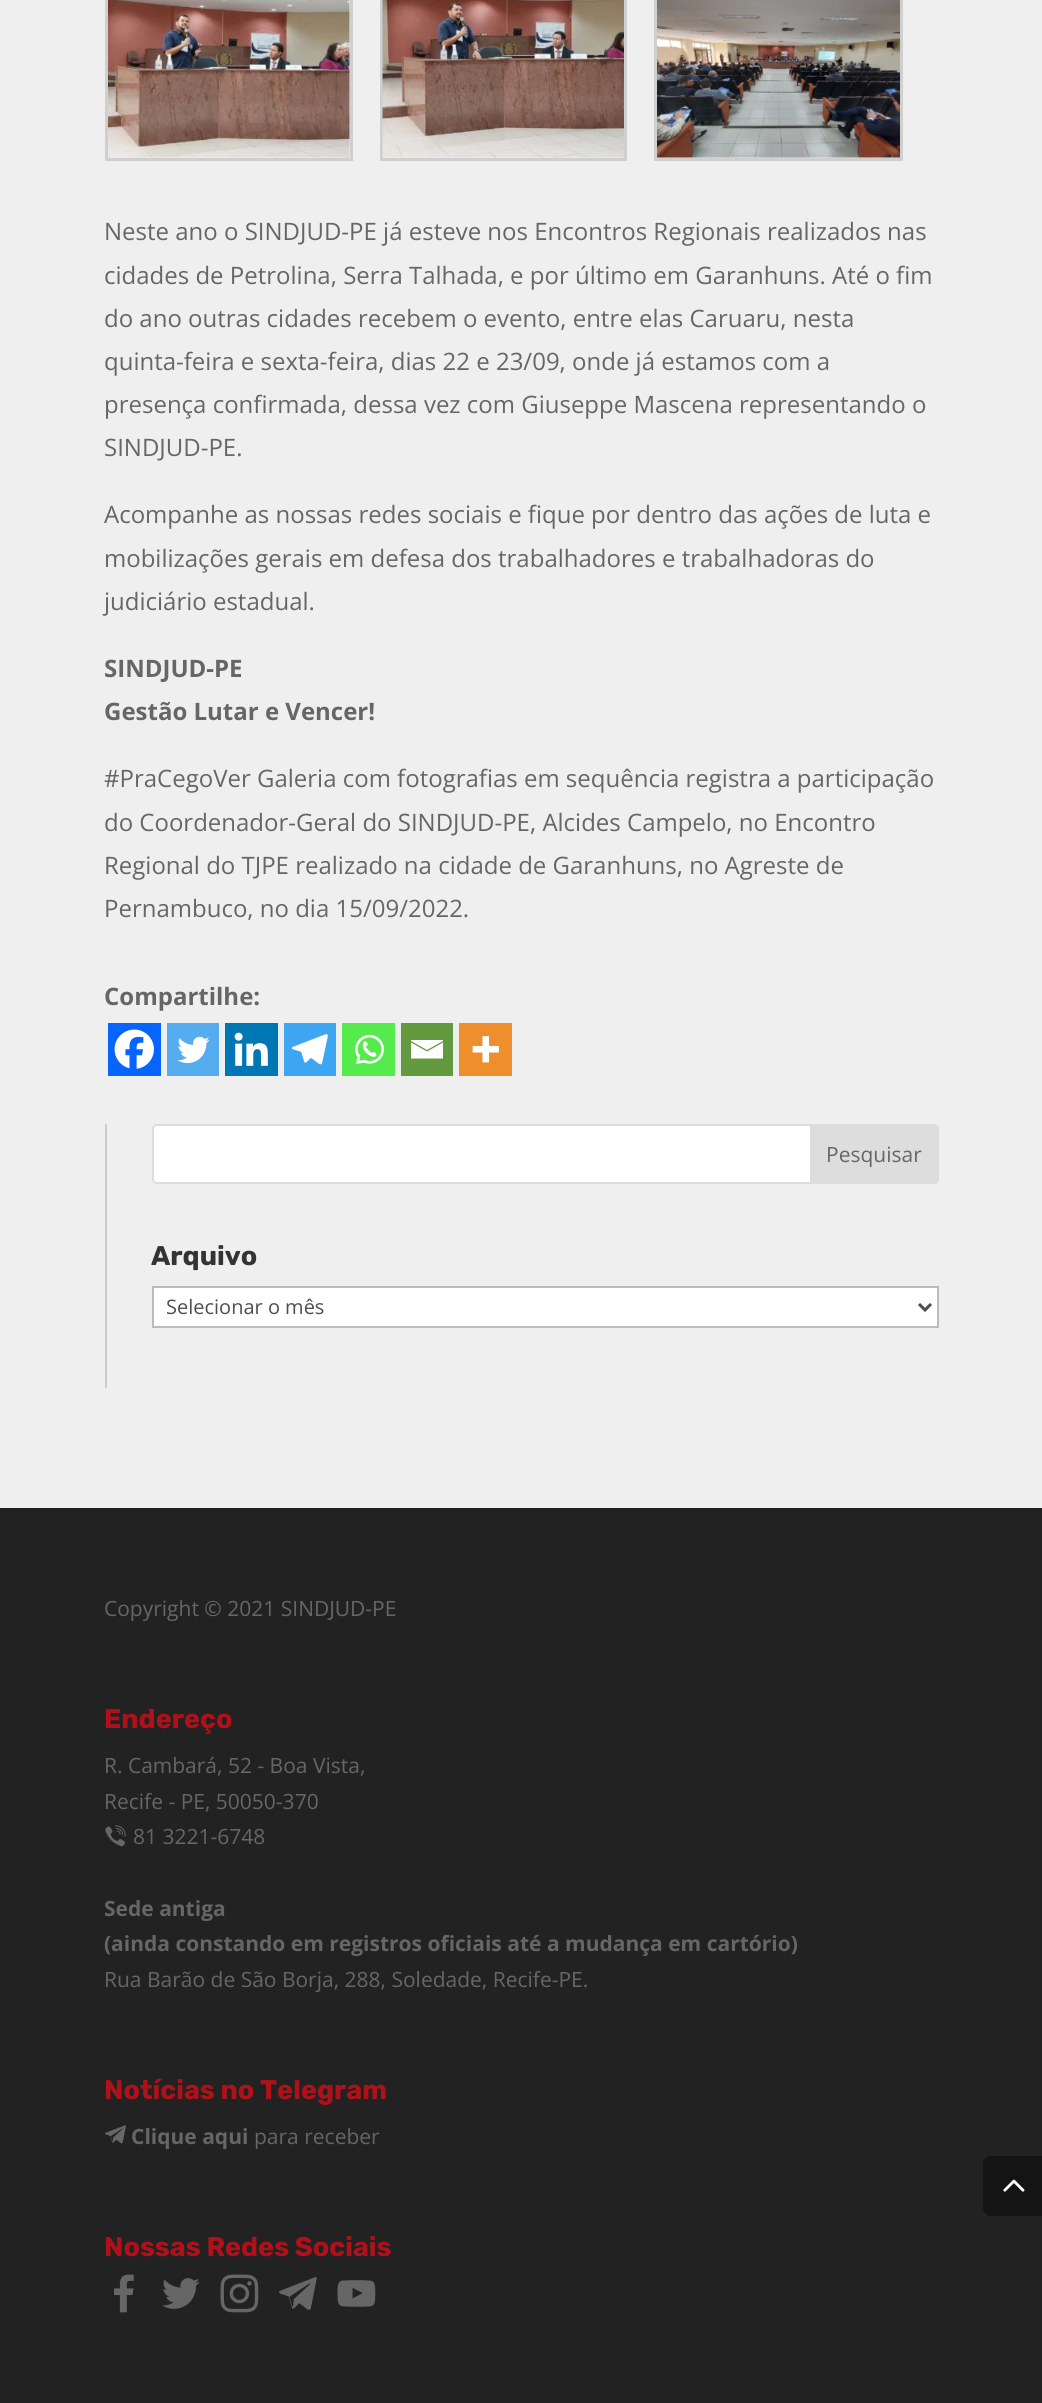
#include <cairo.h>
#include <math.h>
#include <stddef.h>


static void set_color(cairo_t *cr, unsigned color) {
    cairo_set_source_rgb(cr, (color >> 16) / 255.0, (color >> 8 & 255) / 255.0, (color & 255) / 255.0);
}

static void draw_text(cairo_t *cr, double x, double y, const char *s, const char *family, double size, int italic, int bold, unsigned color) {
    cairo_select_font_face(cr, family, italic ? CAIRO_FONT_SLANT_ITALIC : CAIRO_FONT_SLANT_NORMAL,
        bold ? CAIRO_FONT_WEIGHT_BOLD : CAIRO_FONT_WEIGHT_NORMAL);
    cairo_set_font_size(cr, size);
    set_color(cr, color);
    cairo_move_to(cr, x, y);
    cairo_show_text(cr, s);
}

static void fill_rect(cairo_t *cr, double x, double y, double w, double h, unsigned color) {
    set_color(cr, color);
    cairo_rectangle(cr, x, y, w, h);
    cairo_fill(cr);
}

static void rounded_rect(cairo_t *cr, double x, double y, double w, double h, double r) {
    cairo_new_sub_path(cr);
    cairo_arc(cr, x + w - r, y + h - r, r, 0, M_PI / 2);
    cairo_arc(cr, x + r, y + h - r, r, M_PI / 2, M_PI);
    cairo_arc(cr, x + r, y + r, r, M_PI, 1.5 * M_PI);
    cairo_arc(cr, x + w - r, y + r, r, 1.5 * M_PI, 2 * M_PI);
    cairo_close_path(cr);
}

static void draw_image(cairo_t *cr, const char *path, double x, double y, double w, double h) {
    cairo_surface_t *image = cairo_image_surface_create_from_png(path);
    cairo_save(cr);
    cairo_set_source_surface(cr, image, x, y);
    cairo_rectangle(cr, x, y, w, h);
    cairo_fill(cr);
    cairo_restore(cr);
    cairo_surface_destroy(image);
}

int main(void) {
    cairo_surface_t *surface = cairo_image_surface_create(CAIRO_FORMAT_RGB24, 1042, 2403);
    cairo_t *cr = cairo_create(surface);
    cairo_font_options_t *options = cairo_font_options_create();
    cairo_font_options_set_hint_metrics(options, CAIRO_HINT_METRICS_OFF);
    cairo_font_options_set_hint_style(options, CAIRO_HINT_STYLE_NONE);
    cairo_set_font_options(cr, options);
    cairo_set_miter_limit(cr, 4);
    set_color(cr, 0x222222);
    cairo_paint(cr);
    fill_rect(cr, 0, 0, 1042, 1508, 0xEFEFEF);
    cairo_rectangle(cr, 106.5, -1.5, 245, 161);
    set_color(cr, 0xCFCFCF);
    cairo_set_line_width(cr, 3);
    cairo_stroke(cr);
    draw_image(cr, "assets/img1.png", 108, 0, 242, 158);
    cairo_rectangle(cr, 381.5, -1.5, 244, 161);
    cairo_stroke(cr);
    draw_image(cr, "assets/img2.png", 382, 0, 242, 158);
    cairo_rectangle(cr, 655.5, -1.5, 246, 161);
    cairo_stroke(cr);
    draw_image(cr, "assets/img3.png", 657, 0, 243, 158);
    draw_text(cr, 104, 240, "Neste ano o SINDJUD-PE já esteve nos Encontros Regionais realizados nas", "Open Sans", 24, 0, 0, 0x666666);
    draw_text(cr, 104, 284, "cidades de Petrolina, Serra Talhada, e por último em Garanhuns. Até o fim", "Open Sans", 24, 0, 0, 0x666666);
    draw_text(cr, 104, 327, "do ano outras cidades recebem o evento, entre elas Caruaru, nesta", "Open Sans", 24, 0, 0, 0x666666);
    draw_text(cr, 104, 370, "quinta-feira e sexta-feira, dias 22 e 23/09, onde já estamos com a", "Open Sans", 24, 0, 0, 0x666666);
    draw_text(cr, 104, 413, "presença confirmada, dessa vez com Giuseppe Mascena representando o", "Open Sans", 24, 0, 0, 0x666666);
    draw_text(cr, 104, 456, "SINDJUD-PE.", "Open Sans", 24, 0, 0, 0x666666);
    draw_text(cr, 104, 523, "Acompanhe as nossas redes sociais e fique por dentro das ações de luta e", "Open Sans", 24, 0, 0, 0x666666);
    draw_text(cr, 104, 567, "mobilizações gerais em defesa dos trabalhadores e trabalhadoras do", "Open Sans", 24, 0, 0, 0x666666);
    draw_text(cr, 104, 610, "judiciário estadual.", "Open Sans", 24, 0, 0, 0x666666);
    draw_text(cr, 104, 677, "SINDJUD-PE", "Open Sans", 24, 0, 1, 0x666666);
    draw_text(cr, 104, 720, "Gestão Lutar e Vencer!", "Open Sans", 24, 0, 1, 0x666666);
    draw_text(cr, 104, 787, "#PraCegoVer Galeria com fotografias em sequência registra a participação", "Open Sans", 24, 0, 0, 0x666666);
    draw_text(cr, 104, 831, "do Coordenador-Geral do SINDJUD-PE, Alcides Campelo, no Encontro", "Open Sans", 24, 0, 0, 0x666666);
    draw_text(cr, 104, 874, "Regional do TJPE realizado na cidade de Garanhuns, no Agreste de", "Open Sans", 24, 0, 0, 0x666666);
    draw_text(cr, 104, 917, "Pernambuco, no dia 15/09/2022.", "Open Sans", 24, 0, 0, 0x666666);
    draw_text(cr, 104, 1005, "Compartilhe:", "Open Sans", 24, 0, 1, 0x666666);
    fill_rect(cr, 108, 1023, 53, 53, 0x0765FE);
    draw_image(cr, "assets/img4.png", 114, 1029, 40, 40);
    fill_rect(cr, 167, 1023, 52, 53, 0x55ACEE);
    draw_image(cr, "assets/img5.png", 177, 1036, 33, 28);
    fill_rect(cr, 225, 1023, 53, 53, 0x0077B5);
    draw_image(cr, "assets/img6.png", 234, 1032, 34, 34);
    fill_rect(cr, 284, 1023, 52, 53, 0x3DA5F1);
    draw_image(cr, "assets/img7.png", 291, 1034, 37, 31);
    fill_rect(cr, 342, 1023, 53, 53, 0x55EB4C);
    draw_image(cr, "assets/img8.png", 355, 1034, 29, 30);
    fill_rect(cr, 401, 1023, 52, 53, 0x649A3F);
    set_color(cr, 0xFFFFFF);
    cairo_new_path(cr);
    cairo_move_to(cr, 409.5, 1040);
    cairo_line_to(cr, 443, 1040);
    cairo_line_to(cr, 443, 1041);
    cairo_line_to(cr, 427, 1050);
    cairo_line_to(cr, 411, 1041);
    cairo_line_to(cr, 411, 1040);
    cairo_move_to(cr, 411, 1042.5);
    cairo_line_to(cr, 427, 1051.5);
    cairo_line_to(cr, 443, 1042.5);
    cairo_line_to(cr, 443, 1058.5);
    cairo_line_to(cr, 411, 1058.5);
    cairo_line_to(cr, 411, 1042.5);
    cairo_fill(cr);
    fill_rect(cr, 459, 1023, 53, 53, 0xEE8E2D);
    draw_image(cr, "assets/img9.png", 472, 1036, 27, 27);
    fill_rect(cr, 105, 1124, 2, 264, 0xCCCCCC);
    set_color(cr, 0xFFFFFF);
    rounded_rect(cr, 153, 1125, 785, 58, 4);
    cairo_fill_preserve(cr);
    set_color(cr, 0xDDDDDD);
    cairo_set_line_width(cr, 2);
    cairo_stroke(cr);
    cairo_new_path(cr);
    cairo_move_to(cr, 811, 1125);
    cairo_line_to(cr, 934, 1125);
    cairo_curve_to(cr, 936, 1125, 938, 1127, 938, 1129);
    cairo_line_to(cr, 938, 1179);
    cairo_curve_to(cr, 938, 1181, 936, 1183, 934, 1183);
    cairo_line_to(cr, 811, 1183);
    cairo_close_path(cr);
    cairo_fill_preserve(cr);
    cairo_stroke(cr);
    draw_text(cr, 826, 1162, "Pesquisar", "Open Sans", 21, 0, 0, 0x666666);
    draw_text(cr, 151, 1265, "Arquivo", "Rubik", 27, 0, 1, 0x333333);
    set_color(cr, 0xFFFFFF);
    cairo_rectangle(cr, 153, 1287, 785, 40);
    cairo_fill_preserve(cr);
    set_color(cr, 0xBBBBBB);
    cairo_stroke(cr);
    cairo_new_path(cr);
    cairo_move_to(cr, 919, 1304);
    cairo_line_to(cr, 925, 1310);
    cairo_line_to(cr, 931, 1304);
    set_color(cr, 0x4E4E4E);
    cairo_set_line_width(cr, 3);
    cairo_stroke(cr);
    draw_text(cr, 166, 1314, "Selecionar o mês", "Open Sans", 20, 0, 0, 0x4E4E4E);
    draw_text(cr, 104, 1616, "Copyright © 2021 SINDJUD-PE", "Open Sans", 21, 0, 0, 0x666666);
    draw_text(cr, 104, 1728, "Endereço", "Rubik", 27, 0, 1, 0xB01119);
    draw_text(cr, 104, 1773, "R. Cambará, 52 - Boa Vista,", "Open Sans", 21, 0, 0, 0x666666);
    draw_text(cr, 104, 1809, "Recife - PE, 50050-370", "Open Sans", 21, 0, 0, 0x666666);
    draw_image(cr, "assets/img10.png", 105, 1825, 21, 22);
    draw_text(cr, 133, 1844, "81 3221-6748", "Open Sans", 21, 0, 0, 0x666666);
    draw_text(cr, 104, 1916, "Sede antiga", "Open Sans", 21, 0, 1, 0x666666);
    draw_text(cr, 104, 1951, "(ainda constando em registros oficiais até a mudança em cartório)", "Open Sans", 21, 0, 1, 0x666666);
    draw_text(cr, 104, 1987, "Rua Barão de São Borja, 288, Soledade, Recife-PE.", "Open Sans", 21, 0, 0, 0x666666);
    draw_text(cr, 104, 2099, "Notícias no Telegram", "Rubik", 27, 0, 1, 0xB01119);
    draw_image(cr, "assets/img11.png", 105, 2125, 21, 19);
    draw_text(cr, 131, 2144, "Clique aqui", "Open Sans", 21, 0, 1, 0x666666);
    draw_text(cr, 254, 2144, "para receber", "Open Sans", 21, 0, 0, 0x666666);
    draw_text(cr, 104, 2256, "Nossas Redes Sociais", "Rubik", 27, 0, 1, 0xB01119);
    draw_image(cr, "assets/img12.png", 114, 2274, 20, 39);
    draw_image(cr, "assets/img13.png", 162, 2278, 38, 31);
    draw_image(cr, "assets/img14.png", 220, 2274, 39, 39);
    draw_image(cr, "assets/img15.png", 279, 2277, 38, 33);
    draw_image(cr, "assets/img16.png", 337, 2280, 39, 27);
    set_color(cr, 0x141414);
    cairo_new_path(cr);
    cairo_move_to(cr, 991, 2156);
    cairo_line_to(cr, 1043, 2156);
    cairo_line_to(cr, 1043, 2216);
    cairo_line_to(cr, 991, 2216);
    cairo_curve_to(cr, 986.5, 2216, 983, 2212.5, 983, 2208);
    cairo_line_to(cr, 983, 2164);
    cairo_curve_to(cr, 983, 2159.5, 986.5, 2156, 991, 2156);
    cairo_close_path(cr);
    cairo_fill(cr);
    draw_image(cr, "assets/img17.png", 1003, 2179, 22, 13);
    cairo_surface_write_to_png(surface, "output.png");
    cairo_font_options_destroy(options);
    cairo_destroy(cr);
    cairo_surface_destroy(surface);
    return 0;
}
